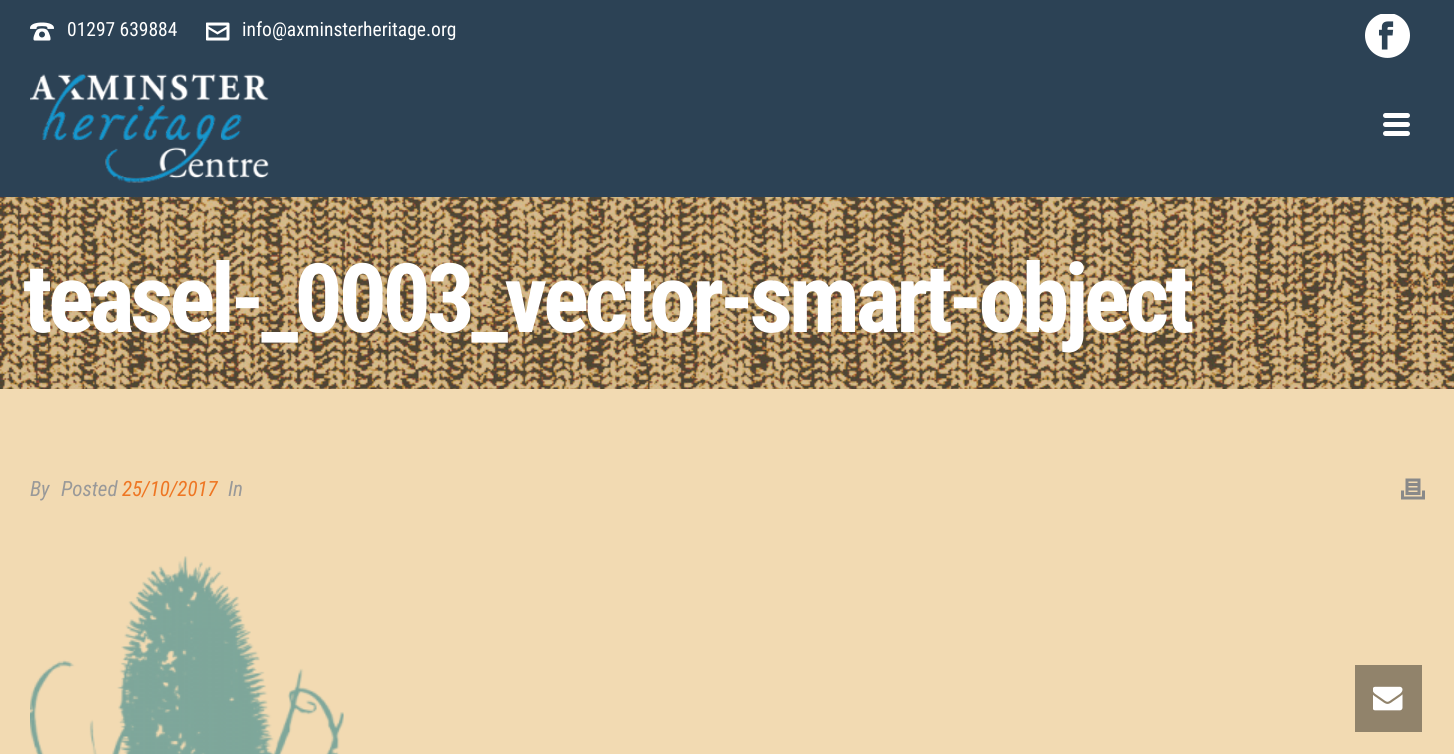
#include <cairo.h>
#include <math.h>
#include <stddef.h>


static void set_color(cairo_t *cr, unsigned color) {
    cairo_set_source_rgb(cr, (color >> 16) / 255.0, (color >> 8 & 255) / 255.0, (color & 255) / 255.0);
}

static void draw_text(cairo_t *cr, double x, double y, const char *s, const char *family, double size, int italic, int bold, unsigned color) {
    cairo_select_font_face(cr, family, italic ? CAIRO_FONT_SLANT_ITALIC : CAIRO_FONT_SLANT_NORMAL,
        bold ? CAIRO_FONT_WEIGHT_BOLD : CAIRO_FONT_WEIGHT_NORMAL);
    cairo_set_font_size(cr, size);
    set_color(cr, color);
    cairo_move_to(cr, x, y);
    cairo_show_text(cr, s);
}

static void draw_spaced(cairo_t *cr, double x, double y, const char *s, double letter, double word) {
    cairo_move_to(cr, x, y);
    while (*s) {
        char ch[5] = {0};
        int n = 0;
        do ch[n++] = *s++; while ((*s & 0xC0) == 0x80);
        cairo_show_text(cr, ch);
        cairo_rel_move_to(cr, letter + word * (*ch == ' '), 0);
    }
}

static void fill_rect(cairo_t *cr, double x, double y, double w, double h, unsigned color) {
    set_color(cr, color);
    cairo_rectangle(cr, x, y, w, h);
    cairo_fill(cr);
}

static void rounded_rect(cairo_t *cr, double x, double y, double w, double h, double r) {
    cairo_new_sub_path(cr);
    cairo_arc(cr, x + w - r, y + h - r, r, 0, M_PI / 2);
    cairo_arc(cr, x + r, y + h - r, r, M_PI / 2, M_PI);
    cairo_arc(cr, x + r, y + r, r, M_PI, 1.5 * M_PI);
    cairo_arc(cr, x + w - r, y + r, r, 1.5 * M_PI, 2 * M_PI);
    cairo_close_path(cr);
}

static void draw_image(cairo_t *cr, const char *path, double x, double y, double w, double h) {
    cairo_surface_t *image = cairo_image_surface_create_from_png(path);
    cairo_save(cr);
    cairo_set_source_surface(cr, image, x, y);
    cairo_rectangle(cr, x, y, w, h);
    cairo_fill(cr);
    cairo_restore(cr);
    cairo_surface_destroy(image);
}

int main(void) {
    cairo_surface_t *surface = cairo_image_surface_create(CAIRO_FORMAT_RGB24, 1454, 754);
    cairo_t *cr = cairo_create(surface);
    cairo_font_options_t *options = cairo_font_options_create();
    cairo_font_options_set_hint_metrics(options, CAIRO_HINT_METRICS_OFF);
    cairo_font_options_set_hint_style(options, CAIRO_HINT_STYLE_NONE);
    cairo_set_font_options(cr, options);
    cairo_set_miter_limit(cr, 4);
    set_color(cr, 0xF2DAB2);
    cairo_paint(cr);
    draw_image(cr, "assets/img1.png", 0, 197, 1454, 192);
    fill_rect(cr, 0, 0, 1454, 197, 0x2C4255);
    draw_image(cr, "assets/img2.png", 30, 74, 239, 109);
    set_color(cr, 0xFFFFFF);
    rounded_rect(cr, 1383, 113, 27, 5, 2.5);
    cairo_fill(cr);
    rounded_rect(cr, 1383, 122, 27, 5, 2.5);
    cairo_fill(cr);
    rounded_rect(cr, 1383, 131, 27, 5, 2.5);
    cairo_fill(cr);
    draw_image(cr, "assets/img3.png", 30, 22, 24, 19);
    draw_text(cr, 67, 36, "01297 639884", "Roboto Condensed", 19.5, 0, 0, 0xFFFFFF);
    draw_image(cr, "assets/img4.png", 206, 22, 24, 19);
    draw_text(cr, 242, 36, "info@axminsterheritage.org", "Roboto Condensed", 19.5, 0, 0, 0xFFFFFF);
    draw_image(cr, "assets/img5.png", 1365, 14, 45, 44);
    cairo_select_font_face(cr, "Roboto Condensed", CAIRO_FONT_SLANT_NORMAL, CAIRO_FONT_WEIGHT_BOLD);
    cairo_set_font_size(cr, 96);
    draw_spaced(cr, 23, 332, "teasel-_0003_vector-smart-object", -4.5, 0);
    draw_text(cr, 30, 496, "By", "Roboto Condensed", 21, 1, 0, 0x999999);
    draw_text(cr, 61, 496, "Posted", "Roboto Condensed", 21, 1, 0, 0x999999);
    draw_text(cr, 122, 496, "25/10/2017", "Roboto Condensed", 21, 1, 0, 0xEE7623);
    draw_text(cr, 228, 496, "In", "Roboto Condensed", 21, 1, 0, 0x999999);
    draw_image(cr, "assets/img6.png", 1401, 478, 24, 22);
    draw_image(cr, "assets/img7.png", 30, 556, 314, 198);
    fill_rect(cr, 1355, 665, 67, 67, 0x91836B);
    draw_image(cr, "assets/img8.png", 1373, 686, 30, 25);
    cairo_surface_write_to_png(surface, "output.png");
    cairo_font_options_destroy(options);
    cairo_destroy(cr);
    cairo_surface_destroy(surface);
    return 0;
}
